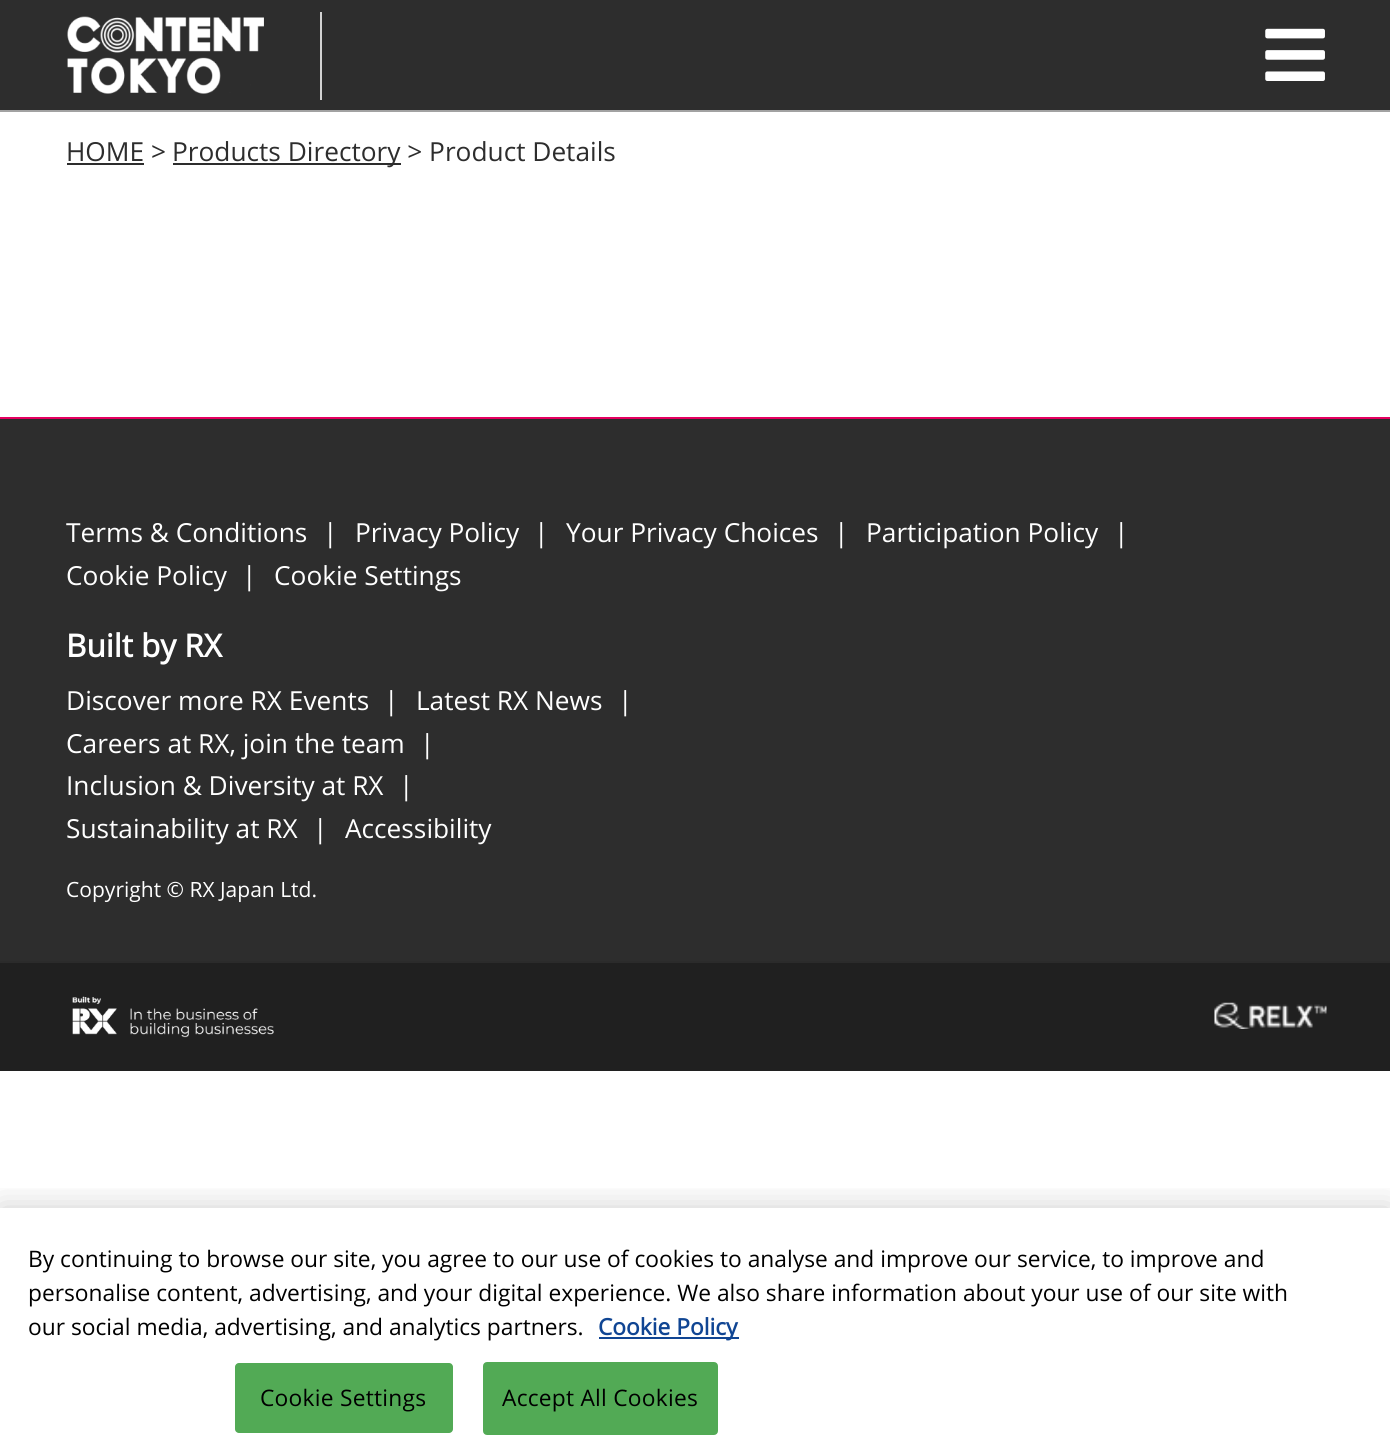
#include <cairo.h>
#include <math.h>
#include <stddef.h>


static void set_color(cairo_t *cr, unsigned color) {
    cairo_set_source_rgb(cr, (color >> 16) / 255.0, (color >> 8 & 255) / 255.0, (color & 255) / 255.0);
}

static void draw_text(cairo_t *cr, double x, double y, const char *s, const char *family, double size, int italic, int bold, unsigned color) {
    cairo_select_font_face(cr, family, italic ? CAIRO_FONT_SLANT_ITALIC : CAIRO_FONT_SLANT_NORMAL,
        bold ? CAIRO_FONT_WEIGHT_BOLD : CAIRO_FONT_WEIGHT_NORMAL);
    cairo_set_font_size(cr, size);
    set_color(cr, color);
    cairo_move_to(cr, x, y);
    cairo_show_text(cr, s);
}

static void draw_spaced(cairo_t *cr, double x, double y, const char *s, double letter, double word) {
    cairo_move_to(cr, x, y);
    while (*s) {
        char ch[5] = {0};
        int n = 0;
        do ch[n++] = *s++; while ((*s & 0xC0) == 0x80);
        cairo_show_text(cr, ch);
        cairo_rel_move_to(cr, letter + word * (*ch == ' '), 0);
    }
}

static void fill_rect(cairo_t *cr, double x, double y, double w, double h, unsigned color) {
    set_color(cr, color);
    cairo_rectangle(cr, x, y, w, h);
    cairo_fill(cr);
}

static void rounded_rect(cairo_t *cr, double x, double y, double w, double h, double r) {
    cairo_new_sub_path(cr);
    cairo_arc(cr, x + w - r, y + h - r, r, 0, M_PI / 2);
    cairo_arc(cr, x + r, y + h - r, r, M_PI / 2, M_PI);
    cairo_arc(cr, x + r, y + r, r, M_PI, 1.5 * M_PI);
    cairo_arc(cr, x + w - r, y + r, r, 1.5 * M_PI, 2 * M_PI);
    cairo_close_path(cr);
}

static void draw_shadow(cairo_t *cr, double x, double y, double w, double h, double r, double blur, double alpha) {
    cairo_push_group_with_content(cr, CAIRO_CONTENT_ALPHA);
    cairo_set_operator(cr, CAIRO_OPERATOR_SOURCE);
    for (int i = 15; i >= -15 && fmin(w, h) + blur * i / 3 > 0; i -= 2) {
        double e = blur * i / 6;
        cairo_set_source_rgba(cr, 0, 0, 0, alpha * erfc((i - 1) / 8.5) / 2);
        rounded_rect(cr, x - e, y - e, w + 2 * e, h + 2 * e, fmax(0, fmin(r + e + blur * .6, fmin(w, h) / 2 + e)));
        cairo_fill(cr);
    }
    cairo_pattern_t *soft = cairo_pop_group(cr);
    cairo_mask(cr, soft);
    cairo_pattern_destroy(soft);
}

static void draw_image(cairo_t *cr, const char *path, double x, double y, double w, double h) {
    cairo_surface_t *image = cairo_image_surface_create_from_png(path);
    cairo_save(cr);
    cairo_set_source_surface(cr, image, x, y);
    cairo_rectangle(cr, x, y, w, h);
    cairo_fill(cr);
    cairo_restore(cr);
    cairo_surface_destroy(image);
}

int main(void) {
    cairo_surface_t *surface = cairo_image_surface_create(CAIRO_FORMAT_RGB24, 1390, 1451);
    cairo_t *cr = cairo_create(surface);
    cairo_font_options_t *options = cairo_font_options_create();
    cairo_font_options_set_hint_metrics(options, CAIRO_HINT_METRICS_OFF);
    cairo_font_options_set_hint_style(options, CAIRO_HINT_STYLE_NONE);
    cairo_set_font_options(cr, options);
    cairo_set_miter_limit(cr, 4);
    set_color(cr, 0xFFFFFF);
    cairo_paint(cr);
    fill_rect(cr, 0, 0, 1390, 110, 0x2D2D2D);
    fill_rect(cr, 0, 110, 1390, 2, 0xA2A2A2);
    draw_image(cr, "assets/img1.png", 67, 16, 197, 78);
    fill_rect(cr, 320, 12, 2, 88, 0xD2D2D2);
    draw_image(cr, "assets/img2.png", 1265, 28, 60, 53);
    draw_text(cr, 66, 161, "HOME >", "Open Sans", 26.25, 0, 0, 0x2D2D2D);
    fill_rect(cr, 67, 163, 77, 2, 0x2D2D2D);
    fill_rect(cr, 173, 163, 228, 2, 0x2D2D2D);
    draw_text(cr, 172, 161, "Products Directory > Product Details", "Open Sans", 26.25, 0, 0, 0x2D2D2D);
    fill_rect(cr, 0, 419, 1390, 542, 0x2D2D2D);
    fill_rect(cr, 0, 417, 1390, 2, 0xE50060);
    draw_text(cr, 66, 542, "Terms & Conditions", "Open Sans", 26.25, 0, 0, 0xFFFFFF);
    draw_text(cr, 323, 542, "|", "Open Sans", 26.25, 0, 0, 0xFFFFFF);
    draw_text(cr, 355, 542, "Privacy Policy", "Open Sans", 26.25, 0, 0, 0xFFFFFF);
    draw_text(cr, 534, 542, "|", "Open Sans", 26.25, 0, 0, 0xFFFFFF);
    draw_text(cr, 566, 542, "Your Privacy Choices", "Open Sans", 26.25, 0, 0, 0xFFFFFF);
    draw_text(cr, 834, 542, "|", "Open Sans", 26.25, 0, 0, 0xFFFFFF);
    draw_text(cr, 866, 542, "Participation Policy", "Open Sans", 26.25, 0, 0, 0xFFFFFF);
    draw_text(cr, 1114, 542, "|", "Open Sans", 26.25, 0, 0, 0xFFFFFF);
    draw_text(cr, 66, 585, "Cookie Policy", "Open Sans", 26.25, 0, 0, 0xFFFFFF);
    draw_text(cr, 242, 585, "|", "Open Sans", 26.25, 0, 0, 0xFFFFFF);
    draw_text(cr, 274, 585, "Cookie Settings", "Open Sans", 26.25, 0, 0, 0xFFFFFF);
    draw_text(cr, 66, 657, "Built by RX", "Open Sans", 31.5, 0, 1, 0xFFFFFF);
    draw_text(cr, 66, 710, "Discover more RX Events", "Open Sans", 26.25, 0, 0, 0xFFFFFF);
    draw_text(cr, 384, 710, "|", "Open Sans", 26.25, 0, 0, 0xFFFFFF);
    draw_text(cr, 416, 710, "Latest RX News", "Open Sans", 26.25, 0, 0, 0xFFFFFF);
    draw_text(cr, 618, 710, "|", "Open Sans", 26.25, 0, 0, 0xFFFFFF);
    draw_text(cr, 66, 753, "Careers at RX, join the team", "Open Sans", 26.25, 0, 0, 0xFFFFFF);
    draw_text(cr, 420, 753, "|", "Open Sans", 26.25, 0, 0, 0xFFFFFF);
    draw_text(cr, 66, 795, "Inclusion & Diversity at RX", "Open Sans", 26.25, 0, 0, 0xFFFFFF);
    draw_text(cr, 399, 795, "|", "Open Sans", 26.25, 0, 0, 0xFFFFFF);
    draw_text(cr, 66, 838, "Sustainability at RX", "Open Sans", 26.25, 0, 0, 0xFFFFFF);
    draw_text(cr, 313, 838, "|", "Open Sans", 26.25, 0, 0, 0xFFFFFF);
    draw_text(cr, 345, 838, "Accessibility", "Open Sans", 26.25, 0, 0, 0xFFFFFF);
    draw_text(cr, 66, 897, "Copyright © RX Japan Ltd.", "Open Sans", 21, 0, 0, 0xFFFFFF);
    fill_rect(cr, 0, 963, 1390, 108, 0x202020);
    fill_rect(cr, 0, 961, 1390, 2, 0x2B2B2B);
    draw_image(cr, "assets/img3.png", 72, 996, 202, 42);
    draw_image(cr, "assets/img4.png", 1214, 1002, 113, 27);
    cairo_save(cr);
    cairo_rectangle(cr, 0, 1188, 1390, 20);
    cairo_clip(cr);
    set_color(cr, 0x000000);
    draw_shadow(cr, 0, 1208, 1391, 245, 0, 16, 0.2);
    cairo_restore(cr);
    draw_text(cr, 28, 1267, "By continuing to browse our site, you agree to our use of cookies to analyse and improve our service, to improve and", "Open Sans", 22.75, 0, 0, 0x000000);
    draw_text(cr, 28, 1301, "personalise content, advertising, and your digital experience. We also share information about your use of our site with", "Open Sans", 22.75, 0, 0, 0x000000);
    draw_text(cr, 28, 1335, "our social media, advertising, and analytics partners.", "Open Sans", 22.75, 0, 0, 0x000000);
    fill_rect(cr, 599, 1337, 140, 2, 0x104593);
    draw_text(cr, 598, 1335, "Cookie Policy", "Open Sans", 22.75, 0, 1, 0x104593);
    set_color(cr, 0x52AA55);
    rounded_rect(cr, 235, 1363, 218, 70, 4);
    cairo_fill(cr);
    cairo_select_font_face(cr, "Open Sans", CAIRO_FONT_SLANT_NORMAL, CAIRO_FONT_WEIGHT_NORMAL);
    set_color(cr, 0x000000);
    draw_spaced(cr, 260, 1406, "Cookie Settings", 0.25, 0);
    set_color(cr, 0x52AA55);
    rounded_rect(cr, 484, 1363, 233, 71, 3);
    cairo_fill_preserve(cr);
    cairo_stroke(cr);
    set_color(cr, 0x000000);
    draw_spaced(cr, 502, 1406, "Accept All Cookies", 0.25, 0);
    cairo_surface_write_to_png(surface, "output.png");
    cairo_font_options_destroy(options);
    cairo_destroy(cr);
    cairo_surface_destroy(surface);
    return 0;
}
